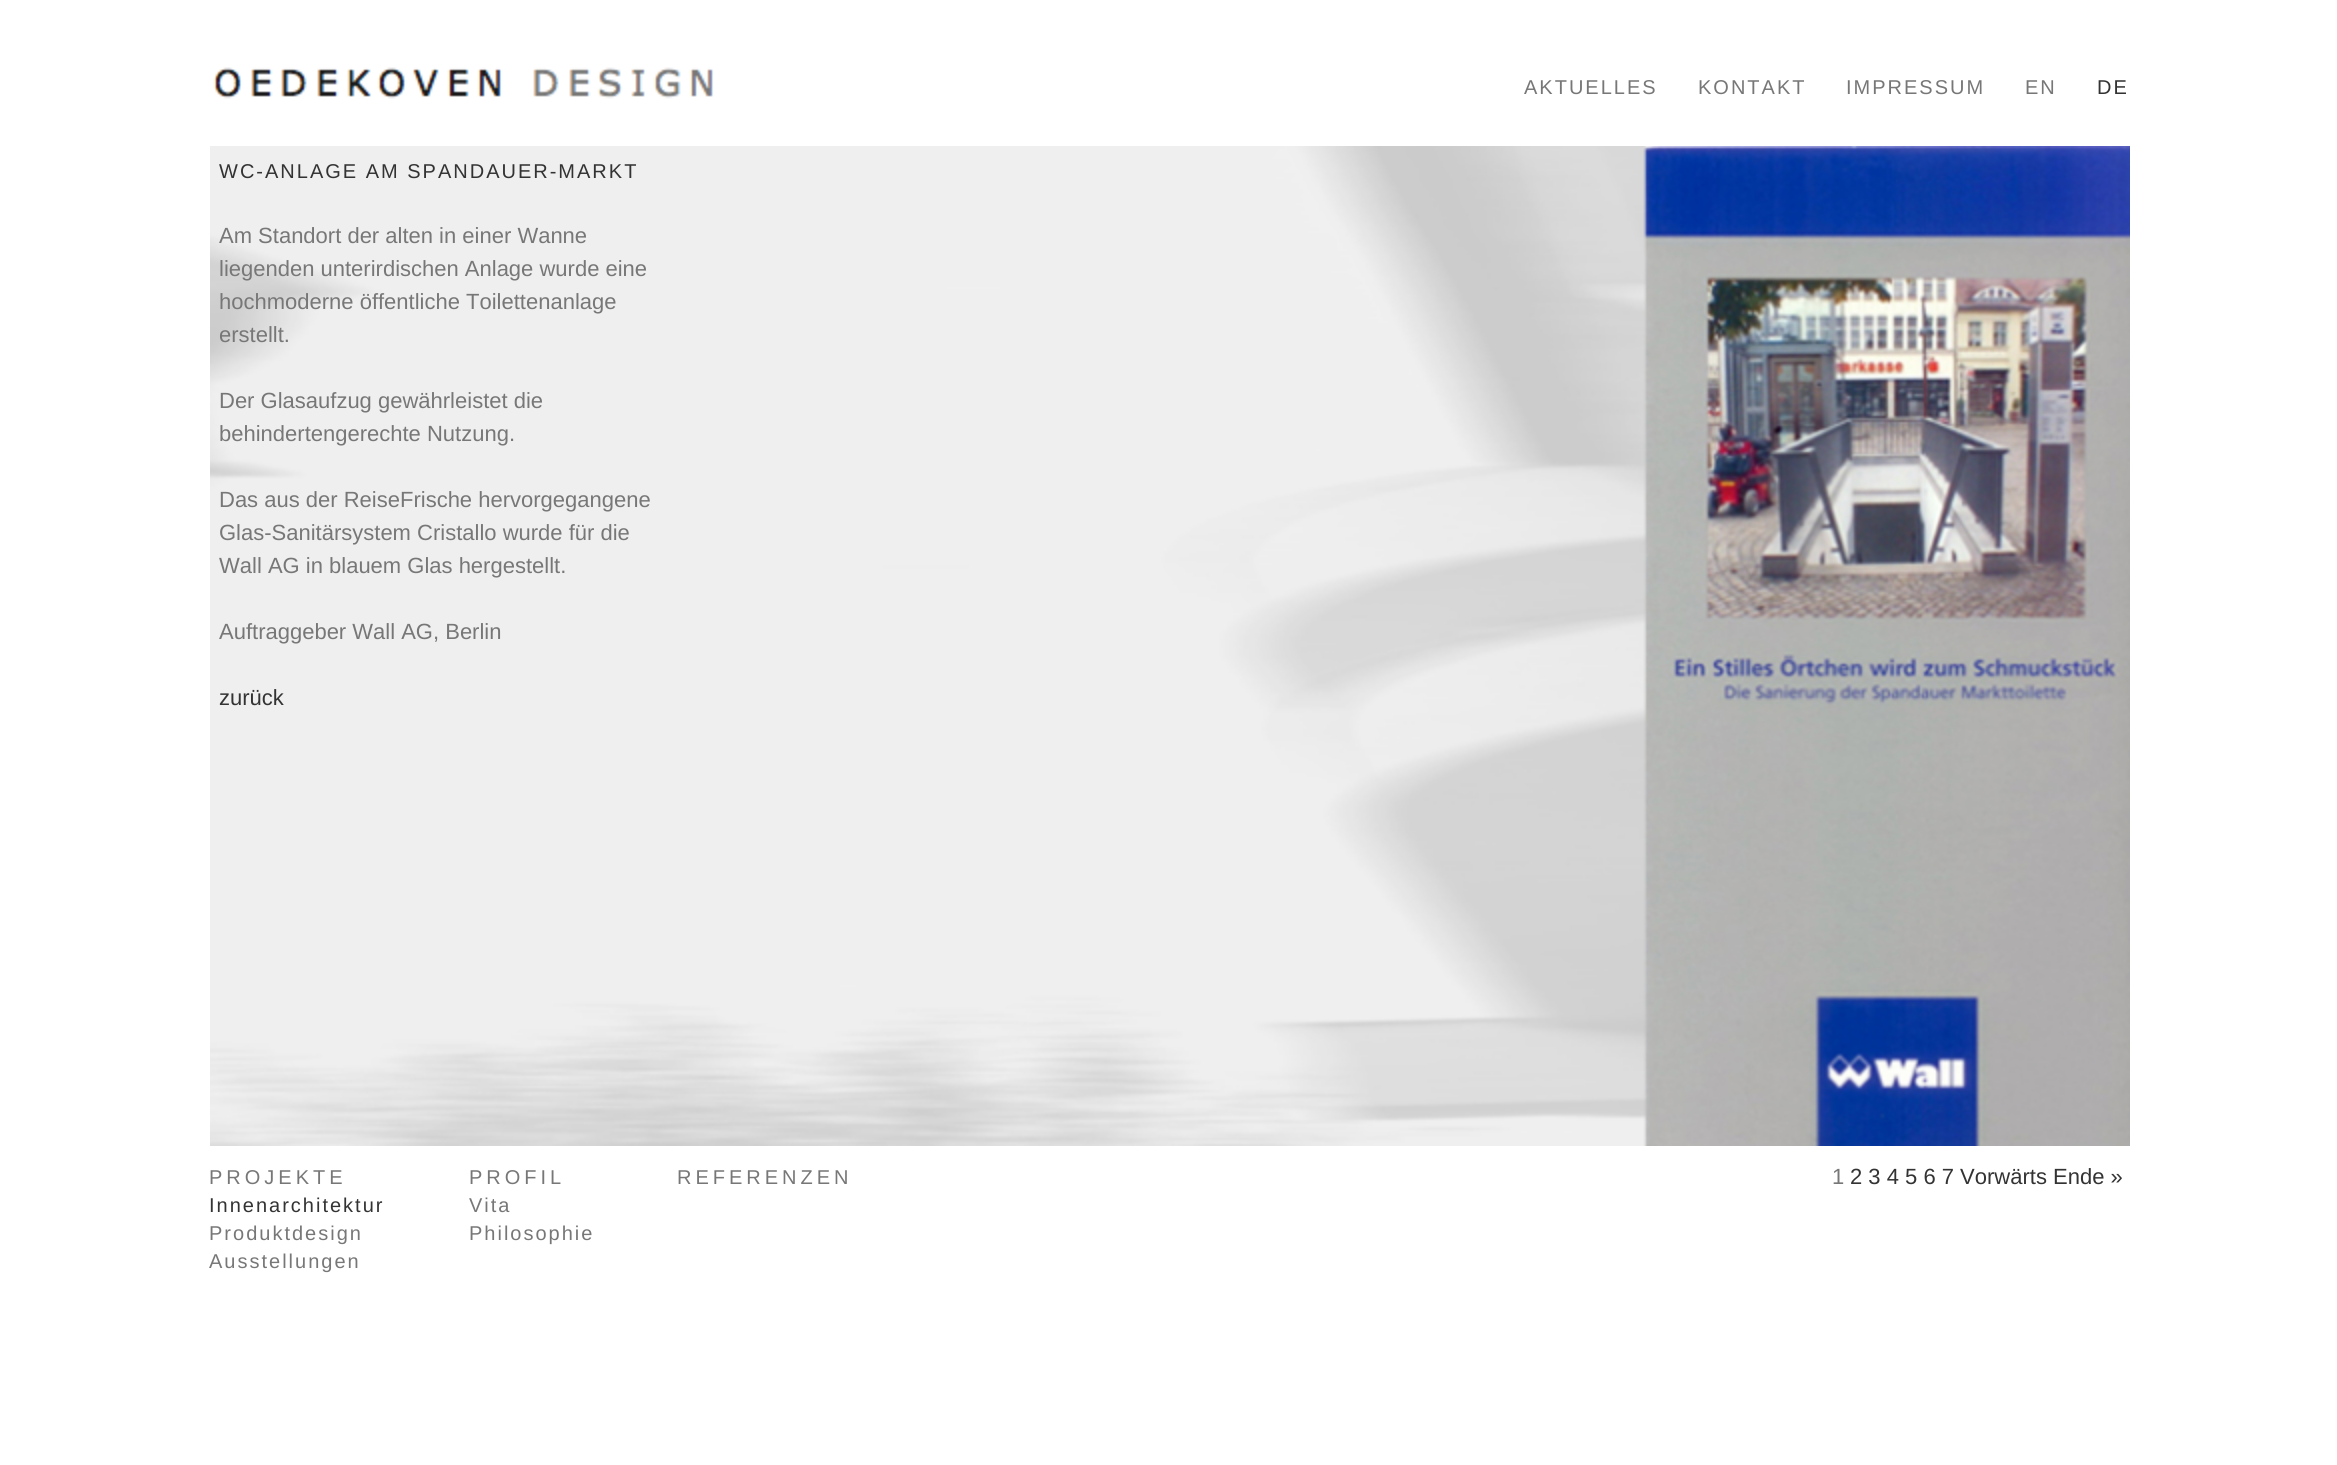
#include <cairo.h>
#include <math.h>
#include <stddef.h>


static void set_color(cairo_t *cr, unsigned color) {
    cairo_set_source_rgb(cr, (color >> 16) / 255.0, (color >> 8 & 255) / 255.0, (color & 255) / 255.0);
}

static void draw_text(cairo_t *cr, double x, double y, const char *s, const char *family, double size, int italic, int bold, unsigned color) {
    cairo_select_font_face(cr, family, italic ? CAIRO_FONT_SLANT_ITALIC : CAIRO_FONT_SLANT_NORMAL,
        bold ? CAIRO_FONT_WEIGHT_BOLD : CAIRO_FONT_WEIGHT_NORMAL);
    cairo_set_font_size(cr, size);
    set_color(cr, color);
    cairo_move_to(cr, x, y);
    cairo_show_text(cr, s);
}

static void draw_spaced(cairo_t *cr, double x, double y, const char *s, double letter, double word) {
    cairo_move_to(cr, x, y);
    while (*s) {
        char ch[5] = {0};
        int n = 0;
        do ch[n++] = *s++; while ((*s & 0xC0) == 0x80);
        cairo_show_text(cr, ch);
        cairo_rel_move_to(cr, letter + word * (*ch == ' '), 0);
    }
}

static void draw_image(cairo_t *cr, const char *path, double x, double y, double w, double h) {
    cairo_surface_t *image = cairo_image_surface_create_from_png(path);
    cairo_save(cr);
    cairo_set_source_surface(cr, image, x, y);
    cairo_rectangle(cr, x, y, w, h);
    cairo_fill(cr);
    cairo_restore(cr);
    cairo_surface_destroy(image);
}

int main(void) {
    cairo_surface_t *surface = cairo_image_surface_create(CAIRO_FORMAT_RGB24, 2337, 1465);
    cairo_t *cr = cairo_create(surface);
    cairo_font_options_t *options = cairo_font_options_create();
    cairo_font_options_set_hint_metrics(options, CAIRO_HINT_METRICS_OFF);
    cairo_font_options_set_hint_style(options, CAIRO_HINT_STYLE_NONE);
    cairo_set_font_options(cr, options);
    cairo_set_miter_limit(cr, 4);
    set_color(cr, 0xFFFFFF);
    cairo_paint(cr);
    draw_image(cr, "assets/img1.png", 213, 67, 501, 32);
    cairo_select_font_face(cr, "Liberation Sans", CAIRO_FONT_SLANT_NORMAL, CAIRO_FONT_WEIGHT_NORMAL);
    cairo_set_font_size(cr, 20);
    set_color(cr, 0x777777);
    draw_spaced(cr, 1524, 94, "AKTUELLES", 2, 0);
    draw_spaced(cr, 1698, 94, "KONTAKT", 2, 0);
    draw_spaced(cr, 1846, 94, "IMPRESSUM", 2, 0);
    draw_spaced(cr, 2025, 94, "EN", 2, 0);
    set_color(cr, 0x333333);
    draw_spaced(cr, 2097, 94, "DE", 2, 0);
    draw_image(cr, "assets/img2.png", 210, 146, 1437, 1000);
    draw_spaced(cr, 219, 178, "WC-ANLAGE AM SPANDAUER-MARKT", 2, 0);
    draw_text(cr, 219, 243, "Am Standort der alten in einer Wanne", "Liberation Sans", 22, 0, 0, 0x777777);
    draw_text(cr, 219, 276, "liegenden unterirdischen Anlage wurde eine", "Liberation Sans", 22, 0, 0, 0x777777);
    draw_text(cr, 219, 309, "hochmoderne öffentliche Toilettenanlage", "Liberation Sans", 22, 0, 0, 0x777777);
    draw_text(cr, 219, 342, "erstellt.", "Liberation Sans", 22, 0, 0, 0x777777);
    draw_text(cr, 219, 408, "Der Glasaufzug gewährleistet die", "Liberation Sans", 22, 0, 0, 0x777777);
    draw_text(cr, 219, 441, "behindertengerechte Nutzung.", "Liberation Sans", 22, 0, 0, 0x777777);
    draw_text(cr, 219, 507, "Das aus der ReiseFrische hervorgegangene", "Liberation Sans", 22, 0, 0, 0x777777);
    draw_text(cr, 219, 540, "Glas-Sanitärsystem Cristallo wurde für die", "Liberation Sans", 22, 0, 0, 0x777777);
    draw_text(cr, 219, 573, "Wall AG in blauem Glas hergestellt.", "Liberation Sans", 22, 0, 0, 0x777777);
    draw_text(cr, 219, 639, "Auftraggeber Wall AG, Berlin", "Liberation Sans", 22, 0, 0, 0x777777);
    draw_text(cr, 219, 705, "zurück", "Liberation Sans", 22, 0, 0, 0x333333);
    draw_image(cr, "assets/img3.png", 1643, 146, 487, 1000);
    draw_text(cr, 1832, 1184, "1", "Liberation Sans", 22, 0, 0, 0x777777);
    draw_text(cr, 1850, 1184, "2 3 4 5 6 7 Vorwärts Ende »", "Liberation Sans", 22, 0, 0, 0x333333);
    cairo_set_font_size(cr, 20);
    set_color(cr, 0x777777);
    draw_spaced(cr, 209, 1184, "PROJEKTE", 4, 0);
    set_color(cr, 0x333333);
    draw_spaced(cr, 209, 1212, "Innenarchitektur", 2, 0);
    set_color(cr, 0x777777);
    draw_spaced(cr, 209, 1240, "Produktdesign", 2, 0);
    draw_spaced(cr, 209, 1268, "Ausstellungen", 2, 0);
    draw_spaced(cr, 469, 1184, "PROFIL", 4, 0);
    draw_spaced(cr, 469, 1212, "Vita", 2, 0);
    draw_spaced(cr, 469, 1240, "Philosophie", 2, 0);
    draw_spaced(cr, 677, 1184, "REFERENZEN", 4, 0);
    cairo_surface_write_to_png(surface, "output.png");
    cairo_font_options_destroy(options);
    cairo_destroy(cr);
    cairo_surface_destroy(surface);
    return 0;
}
